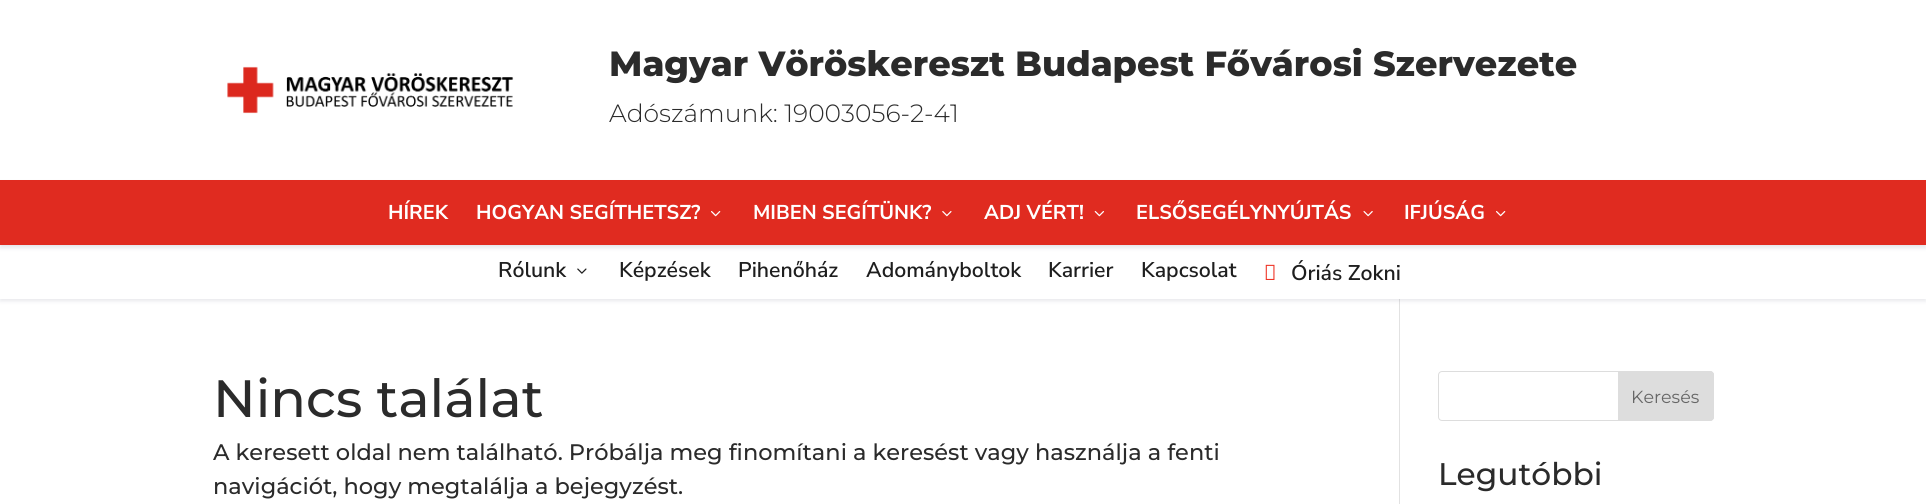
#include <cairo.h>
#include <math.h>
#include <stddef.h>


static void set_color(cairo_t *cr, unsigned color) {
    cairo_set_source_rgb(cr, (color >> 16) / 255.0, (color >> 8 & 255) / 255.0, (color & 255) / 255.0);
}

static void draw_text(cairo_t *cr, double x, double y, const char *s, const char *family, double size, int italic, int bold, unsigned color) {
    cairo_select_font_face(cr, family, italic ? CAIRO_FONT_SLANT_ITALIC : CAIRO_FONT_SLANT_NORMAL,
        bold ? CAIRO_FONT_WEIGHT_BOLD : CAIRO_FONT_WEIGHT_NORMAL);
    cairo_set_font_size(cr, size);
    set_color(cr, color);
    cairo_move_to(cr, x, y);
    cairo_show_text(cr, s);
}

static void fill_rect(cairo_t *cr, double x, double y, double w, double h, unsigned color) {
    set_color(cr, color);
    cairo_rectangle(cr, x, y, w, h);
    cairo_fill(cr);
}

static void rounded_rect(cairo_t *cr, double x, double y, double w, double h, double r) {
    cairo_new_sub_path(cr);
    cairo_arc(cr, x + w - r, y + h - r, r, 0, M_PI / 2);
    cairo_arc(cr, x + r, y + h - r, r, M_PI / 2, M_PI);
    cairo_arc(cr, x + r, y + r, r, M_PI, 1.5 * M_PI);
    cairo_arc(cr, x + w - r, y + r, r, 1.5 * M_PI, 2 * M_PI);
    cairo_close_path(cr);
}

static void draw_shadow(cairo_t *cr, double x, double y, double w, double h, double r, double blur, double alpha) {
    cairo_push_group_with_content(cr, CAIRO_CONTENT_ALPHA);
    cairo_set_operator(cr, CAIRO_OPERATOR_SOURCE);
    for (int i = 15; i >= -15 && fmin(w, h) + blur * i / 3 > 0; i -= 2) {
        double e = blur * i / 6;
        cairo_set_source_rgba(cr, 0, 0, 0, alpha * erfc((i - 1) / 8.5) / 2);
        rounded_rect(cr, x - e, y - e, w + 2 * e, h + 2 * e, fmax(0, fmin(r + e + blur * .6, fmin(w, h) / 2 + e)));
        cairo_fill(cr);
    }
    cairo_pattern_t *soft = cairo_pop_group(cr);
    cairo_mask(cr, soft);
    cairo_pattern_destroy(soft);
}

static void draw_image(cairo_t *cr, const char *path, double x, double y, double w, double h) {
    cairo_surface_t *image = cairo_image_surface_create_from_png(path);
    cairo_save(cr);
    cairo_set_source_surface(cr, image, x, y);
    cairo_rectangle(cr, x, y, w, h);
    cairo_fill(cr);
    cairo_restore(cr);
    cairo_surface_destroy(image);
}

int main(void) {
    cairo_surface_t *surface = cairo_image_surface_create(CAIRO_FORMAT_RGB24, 1926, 504);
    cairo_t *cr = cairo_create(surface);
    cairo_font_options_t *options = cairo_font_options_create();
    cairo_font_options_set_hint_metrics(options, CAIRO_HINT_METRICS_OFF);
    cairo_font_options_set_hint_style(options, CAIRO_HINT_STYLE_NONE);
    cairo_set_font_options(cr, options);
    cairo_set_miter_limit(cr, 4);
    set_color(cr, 0xFFFFFF);
    cairo_paint(cr);
    draw_image(cr, "assets/img1.png", 227, 66, 287, 48);
    draw_text(cr, 609, 76, "Magyar Vöröskereszt Budapest Fővárosi Szervezete", "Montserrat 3 Thin", 35, 0, 0, 0x2B2B2B);
    draw_text(cr, 609, 122, "Adószámunk: 19003056-2-41", "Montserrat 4 Thin", 25, 0, 0, 0x2B2B2B);
    fill_rect(cr, 1399, 299, 1, 205, 0xE2E2E2);
    set_color(cr, 0x515873);
    draw_shadow(cr, 0, 248, 1926, 53, 0, 2, 0.14);
    fill_rect(cr, 0, 246, 1926, 53, 0xFFFFFF);
    set_color(cr, 0x515873);
    draw_shadow(cr, 0, 183, 1926, 65, 0, 2, 0.14);
    fill_rect(cr, 0, 180, 1926, 65, 0xE02B20);
    draw_text(cr, 388, 219, "HÍREK", "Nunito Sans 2 ExtraLight", 20, 0, 0, 0xFFFFFF);
    draw_text(cr, 476, 219, "HOGYAN SEGÍTHETSZ?", "Nunito Sans 2 ExtraLight", 20, 0, 0, 0xFFFFFF);
    draw_image(cr, "assets/img2.png", 711, 211, 10, 6);
    draw_text(cr, 753, 219, "MIBEN SEGÍTÜNK?", "Nunito Sans 2 ExtraLight", 20, 0, 0, 0xFFFFFF);
    draw_image(cr, "assets/img3.png", 942, 211, 10, 6);
    draw_text(cr, 984, 219, "ADJ VÉRT!", "Nunito Sans 2 ExtraLight", 20, 0, 0, 0xFFFFFF);
    draw_image(cr, "assets/img4.png", 1094, 211, 10, 6);
    draw_text(cr, 1136, 219, "ELSŐSEGÉLYNYÚJTÁS", "Nunito Sans 2 ExtraLight", 20, 0, 0, 0xFFFFFF);
    draw_image(cr, "assets/img5.png", 1363, 211, 10, 6);
    draw_text(cr, 1404, 219, "IFJÚSÁG", "Nunito Sans 2 ExtraLight", 20, 0, 0, 0xFFFFFF);
    draw_image(cr, "assets/img2.png", 1496, 211, 10, 6);
    draw_text(cr, 498, 277, "Rólunk", "Nunito Sans ExtraLight", 21.25, 0, 0, 0x1E1E1E);
    draw_image(cr, "assets/img6.png", 577, 268, 10, 6);
    draw_text(cr, 619, 277, "Képzések", "Nunito Sans ExtraLight", 21.25, 0, 0, 0x1E1E1E);
    draw_text(cr, 738, 277, "Pihenőház", "Nunito Sans ExtraLight", 21.25, 0, 0, 0x1E1E1E);
    draw_text(cr, 866, 277, "Adományboltok", "Nunito Sans ExtraLight", 21.25, 0, 0, 0x1E1E1E);
    draw_text(cr, 1048, 277, "Karrier", "Nunito Sans ExtraLight", 21.25, 0, 0, 0x1E1E1E);
    draw_text(cr, 1141, 277, "Kapcsolat", "Nunito Sans ExtraLight", 21.25, 0, 0, 0x1E1E1E);
    draw_image(cr, "assets/img7.png", 1265, 264, 10, 16);
    draw_text(cr, 1291, 280, "Óriás Zokni", "Nunito Sans ExtraLight", 21.25, 0, 0, 0x1E1E1E);
    draw_text(cr, 213, 417, "Nincs találat", "Montserrat Thin", 52.5, 0, 0, 0x2B2B2B);
    draw_text(cr, 213, 460, "A keresett oldal nem található. Próbálja meg finomítani a keresést vagy használja a fenti", "Montserrat Thin", 22.5, 0, 0, 0x2B2B2B);
    draw_text(cr, 213, 494, "navigációt, hogy megtalálja a bejegyzést.", "Montserrat Thin", 22.5, 0, 0, 0x2B2B2B);
    rounded_rect(cr, 1438.5, 371.5, 275, 49, 3.5);
    set_color(cr, 0xDDDDDD);
    cairo_set_line_width(cr, 1);
    cairo_stroke(cr);
    cairo_new_path(cr);
    cairo_move_to(cr, 1618.5, 371.5);
    cairo_line_to(cr, 1710, 371.5);
    cairo_curve_to(cr, 1712, 371.5, 1713.5, 373, 1713.5, 375);
    cairo_line_to(cr, 1713.5, 417);
    cairo_curve_to(cr, 1713.5, 419, 1712, 420.5, 1710, 420.5);
    cairo_line_to(cr, 1618.5, 420.5);
    cairo_close_path(cr);
    cairo_fill_preserve(cr);
    cairo_stroke(cr);
    draw_text(cr, 1631, 403, "Keresés", "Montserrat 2 Thin", 17.5, 0, 0, 0x666666);
    draw_text(cr, 1438, 485, "Legutóbbi", "Montserrat Thin", 31.25, 0, 0, 0x2B2B2B);
    cairo_surface_write_to_png(surface, "output.png");
    cairo_font_options_destroy(options);
    cairo_destroy(cr);
    cairo_surface_destroy(surface);
    return 0;
}
